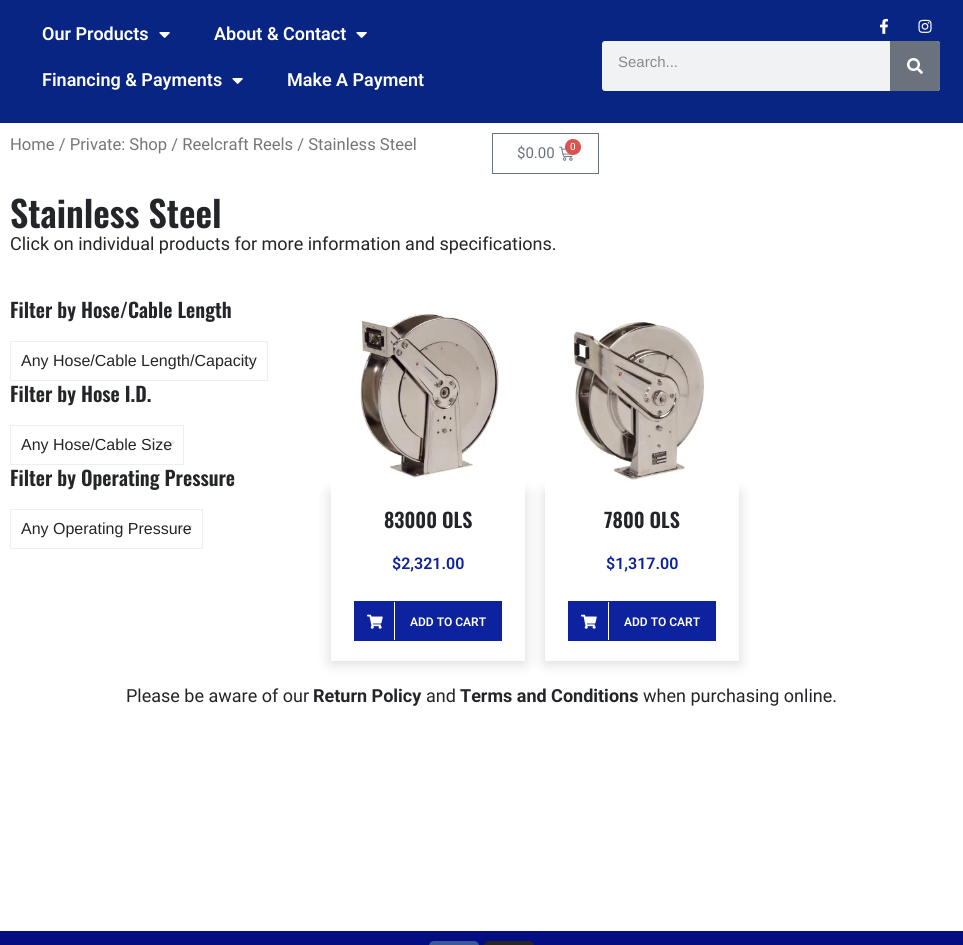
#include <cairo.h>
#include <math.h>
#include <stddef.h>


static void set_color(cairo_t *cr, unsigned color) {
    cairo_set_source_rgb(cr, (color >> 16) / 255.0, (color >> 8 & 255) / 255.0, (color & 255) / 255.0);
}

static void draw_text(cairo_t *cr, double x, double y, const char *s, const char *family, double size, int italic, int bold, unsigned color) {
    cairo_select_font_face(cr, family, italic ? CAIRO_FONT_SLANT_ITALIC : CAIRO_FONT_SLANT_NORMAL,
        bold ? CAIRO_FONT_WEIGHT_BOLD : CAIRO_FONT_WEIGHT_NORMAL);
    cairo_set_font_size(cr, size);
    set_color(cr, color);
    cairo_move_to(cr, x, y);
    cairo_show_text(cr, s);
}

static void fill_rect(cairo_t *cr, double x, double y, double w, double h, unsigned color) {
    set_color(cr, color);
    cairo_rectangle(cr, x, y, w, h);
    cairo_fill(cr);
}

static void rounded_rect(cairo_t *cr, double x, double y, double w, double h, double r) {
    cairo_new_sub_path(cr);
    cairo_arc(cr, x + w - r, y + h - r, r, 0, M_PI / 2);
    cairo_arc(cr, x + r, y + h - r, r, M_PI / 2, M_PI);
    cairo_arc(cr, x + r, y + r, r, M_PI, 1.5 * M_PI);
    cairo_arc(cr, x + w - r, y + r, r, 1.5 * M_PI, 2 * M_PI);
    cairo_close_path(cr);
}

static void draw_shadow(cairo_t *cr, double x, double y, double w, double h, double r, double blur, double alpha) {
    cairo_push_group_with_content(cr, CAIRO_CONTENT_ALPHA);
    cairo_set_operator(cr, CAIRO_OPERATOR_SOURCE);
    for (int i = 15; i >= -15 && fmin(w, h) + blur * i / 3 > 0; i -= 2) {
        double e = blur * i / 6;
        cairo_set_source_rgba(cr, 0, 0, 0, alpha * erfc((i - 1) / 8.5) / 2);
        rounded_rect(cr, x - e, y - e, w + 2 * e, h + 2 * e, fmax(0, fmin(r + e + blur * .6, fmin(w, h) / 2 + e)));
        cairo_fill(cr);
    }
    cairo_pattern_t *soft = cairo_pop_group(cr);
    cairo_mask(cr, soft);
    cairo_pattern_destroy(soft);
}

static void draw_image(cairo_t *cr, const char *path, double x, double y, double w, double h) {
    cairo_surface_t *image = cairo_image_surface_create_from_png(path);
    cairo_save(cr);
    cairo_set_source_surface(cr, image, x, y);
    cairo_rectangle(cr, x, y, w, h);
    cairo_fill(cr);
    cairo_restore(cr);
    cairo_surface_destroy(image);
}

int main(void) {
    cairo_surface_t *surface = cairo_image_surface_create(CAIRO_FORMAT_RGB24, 963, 945);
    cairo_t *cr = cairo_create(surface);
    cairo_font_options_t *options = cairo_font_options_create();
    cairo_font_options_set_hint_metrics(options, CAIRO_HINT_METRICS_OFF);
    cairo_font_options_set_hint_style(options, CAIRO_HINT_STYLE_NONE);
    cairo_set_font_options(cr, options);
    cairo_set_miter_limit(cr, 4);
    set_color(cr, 0xFFFFFF);
    cairo_paint(cr);
    fill_rect(cr, 0, 0, 963, 123, 0x092584);
    draw_text(cr, 42, 40, "Our Products", "Roboto SemiBold", 18, 0, 0, 0xFFFFFF);
    draw_image(cr, "assets/img1.png", 159, 32, 11, 6);
    draw_text(cr, 214, 40, "About & Contact", "Roboto SemiBold", 18, 0, 0, 0xFFFFFF);
    draw_image(cr, "assets/img1.png", 356, 32, 11, 6);
    draw_text(cr, 42, 86, "Financing & Payments", "Roboto SemiBold", 18, 0, 0, 0xFFFFFF);
    draw_image(cr, "assets/img1.png", 232, 78, 11, 6);
    draw_text(cr, 287, 86, "Make A Payment", "Roboto SemiBold", 18, 0, 0, 0xFFFFFF);
    draw_image(cr, "assets/img2.png", 880, 18, 8, 16);
    draw_image(cr, "assets/img3.png", 918, 19, 14, 14);
    set_color(cr, 0xF1F2F3);
    rounded_rect(cr, 602, 41, 338, 50, 3);
    cairo_fill(cr);
    draw_text(cr, 618, 67, "Search...", "Liberation Sans", 15, 0, 0, 0x868A8E);
    set_color(cr, 0x69727D);
    cairo_new_path(cr);
    cairo_move_to(cr, 890, 41);
    cairo_line_to(cr, 937, 41);
    cairo_curve_to(cr, 938.5, 41, 940, 42.5, 940, 44);
    cairo_line_to(cr, 940, 88);
    cairo_curve_to(cr, 940, 89.5, 938.5, 91, 937, 91);
    cairo_line_to(cr, 890, 91);
    cairo_close_path(cr);
    cairo_fill(cr);
    draw_image(cr, "assets/img4.png", 907, 58, 16, 16);
    draw_text(cr, 10, 150, "Home / Private: Shop / Reelcraft Reels / Stainless Steel", "Roboto", 16.6, 0, 0, 0x767676);
    cairo_rectangle(cr, 492.5, 133.5, 106, 40);
    set_color(cr, 0x69727D);
    cairo_set_line_width(cr, 1);
    cairo_stroke(cr);
    draw_text(cr, 517, 158, "$0.00", "Roboto", 15, 0, 0, 0x69727D);
    draw_image(cr, "assets/img5.png", 559, 146, 14, 15);
    set_color(cr, 0xD9534F);
    cairo_arc(cr, 573, 147, 8, 0, 2 * M_PI);
    cairo_fill(cr);
    draw_text(cr, 570, 150, "0", "Roboto", 10, 0, 0, 0xFFFFFF);
    draw_text(cr, 10, 228, "Stainless Steel", "Oswald SemiBold", 36, 0, 0, 0x232529);
    draw_text(cr, 10, 250, "Click on individual products for more information and specifications.", "Roboto", 18, 0, 0, 0x232529);
    draw_text(cr, 10, 318, "Filter by Hose/Cable Length", "Oswald SemiBold", 20, 0, 0, 0x232529);
    draw_image(cr, "assets/img6.png", 240, 357, 15, 8);
    cairo_rectangle(cr, 10.5, 341.5, 257, 39);
    set_color(cr, 0xEEEEEE);
    cairo_stroke(cr);
    draw_text(cr, 21, 366, "Any Hose/Cable Length/Capacity", "Liberation Sans", 16, 0, 0, 0x232529);
    draw_text(cr, 10, 402, "Filter by Hose I.D.", "Oswald SemiBold", 20, 0, 0, 0x232529);
    draw_image(cr, "assets/img6.png", 160, 441, 15, 8);
    cairo_rectangle(cr, 10.5, 425.5, 173, 39);
    set_color(cr, 0xEEEEEE);
    cairo_stroke(cr);
    draw_text(cr, 21, 450, "Any Hose/Cable Size", "Liberation Sans", 16, 0, 0, 0x232529);
    draw_text(cr, 10, 486, "Filter by Operating Pressure", "Oswald SemiBold", 20, 0, 0, 0x232529);
    draw_image(cr, "assets/img6.png", 178, 525, 15, 8);
    cairo_rectangle(cr, 10.5, 509.5, 192, 39);
    set_color(cr, 0xEEEEEE);
    cairo_stroke(cr);
    draw_text(cr, 21, 534, "Any Operating Pressure", "Liberation Sans", 16, 0, 0, 0x232529);
    cairo_save(cr);
    cairo_set_fill_rule(cr, CAIRO_FILL_RULE_EVEN_ODD);
    cairo_new_path(cr);
    cairo_move_to(cr, 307, 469);
    cairo_line_to(cr, 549, 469);
    cairo_line_to(cr, 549, 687);
    cairo_line_to(cr, 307, 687);
    cairo_close_path(cr);
    cairo_move_to(cr, 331, 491);
    cairo_line_to(cr, 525, 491);
    cairo_line_to(cr, 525, 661);
    cairo_line_to(cr, 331, 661);
    cairo_close_path(cr);
    cairo_clip(cr);
    set_color(cr, 0x000000);
    draw_shadow(cr, 331, 493, 194, 170, 0, 7.5, 0.15);
    cairo_restore(cr);
    draw_image(cr, "assets/img7.png", 331, 312, 194, 179);
    draw_text(cr, 384, 528, "83000 OLS", "Oswald SemiBold", 20, 0, 0, 0x232529);
    draw_text(cr, 392, 569, "$2,321.00", "Roboto SemiBold", 16, 0, 0, 0x0C229E);
    fill_rect(cr, 354, 601, 148, 40, 0x0C229E);
    fill_rect(cr, 394, 602, 1, 38, 0xFFFFFF);
    draw_image(cr, "assets/img8.png", 367, 614, 16, 15);
    draw_text(cr, 410, 626, "ADD TO CART", "Roboto SemiBold", 12, 0, 0, 0xFFFFFF);
    cairo_save(cr);
    cairo_set_fill_rule(cr, CAIRO_FILL_RULE_EVEN_ODD);
    cairo_new_path(cr);
    cairo_move_to(cr, 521, 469);
    cairo_line_to(cr, 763, 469);
    cairo_line_to(cr, 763, 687);
    cairo_line_to(cr, 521, 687);
    cairo_close_path(cr);
    cairo_move_to(cr, 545, 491);
    cairo_line_to(cr, 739, 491);
    cairo_line_to(cr, 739, 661);
    cairo_line_to(cr, 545, 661);
    cairo_close_path(cr);
    cairo_clip(cr);
    set_color(cr, 0x000000);
    draw_shadow(cr, 545, 493, 194, 170, 0, 7.5, 0.15);
    cairo_restore(cr);
    draw_image(cr, "assets/img9.png", 545, 320, 194, 171);
    draw_text(cr, 604, 528, "7800 OLS", "Oswald SemiBold", 20, 0, 0, 0x232529);
    draw_text(cr, 606, 569, "$1,317.00", "Roboto SemiBold", 16, 0, 0, 0x0C229E);
    fill_rect(cr, 568, 601, 148, 40, 0x0C229E);
    fill_rect(cr, 608, 602, 1, 38, 0xFFFFFF);
    draw_image(cr, "assets/img8.png", 581, 614, 16, 15);
    draw_text(cr, 624, 626, "ADD TO CART", "Roboto SemiBold", 12, 0, 0, 0xFFFFFF);
    draw_text(cr, 126, 702, "Please be aware of our", "Roboto", 18, 0, 0, 0x232529);
    draw_text(cr, 313, 702, "Return Policy", "Roboto", 18, 0, 1, 0x232529);
    draw_text(cr, 426, 702, "and", "Roboto", 18, 0, 0, 0x232529);
    draw_text(cr, 460, 702, "Terms and Conditions", "Roboto", 18, 0, 1, 0x232529);
    draw_text(cr, 643, 702, "when purchasing online.", "Roboto", 18, 0, 0, 0x232529);
    fill_rect(cr, 0, 931, 963, 14, 0x040D81);
    set_color(cr, 0x3B5998);
    rounded_rect(cr, 429, 941, 50, 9, 5);
    cairo_fill(cr);
    set_color(cr, 0x262626);
    rounded_rect(cr, 484, 941, 50, 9, 5);
    cairo_fill(cr);
    cairo_surface_write_to_png(surface, "output.png");
    cairo_font_options_destroy(options);
    cairo_destroy(cr);
    cairo_surface_destroy(surface);
    return 0;
}
